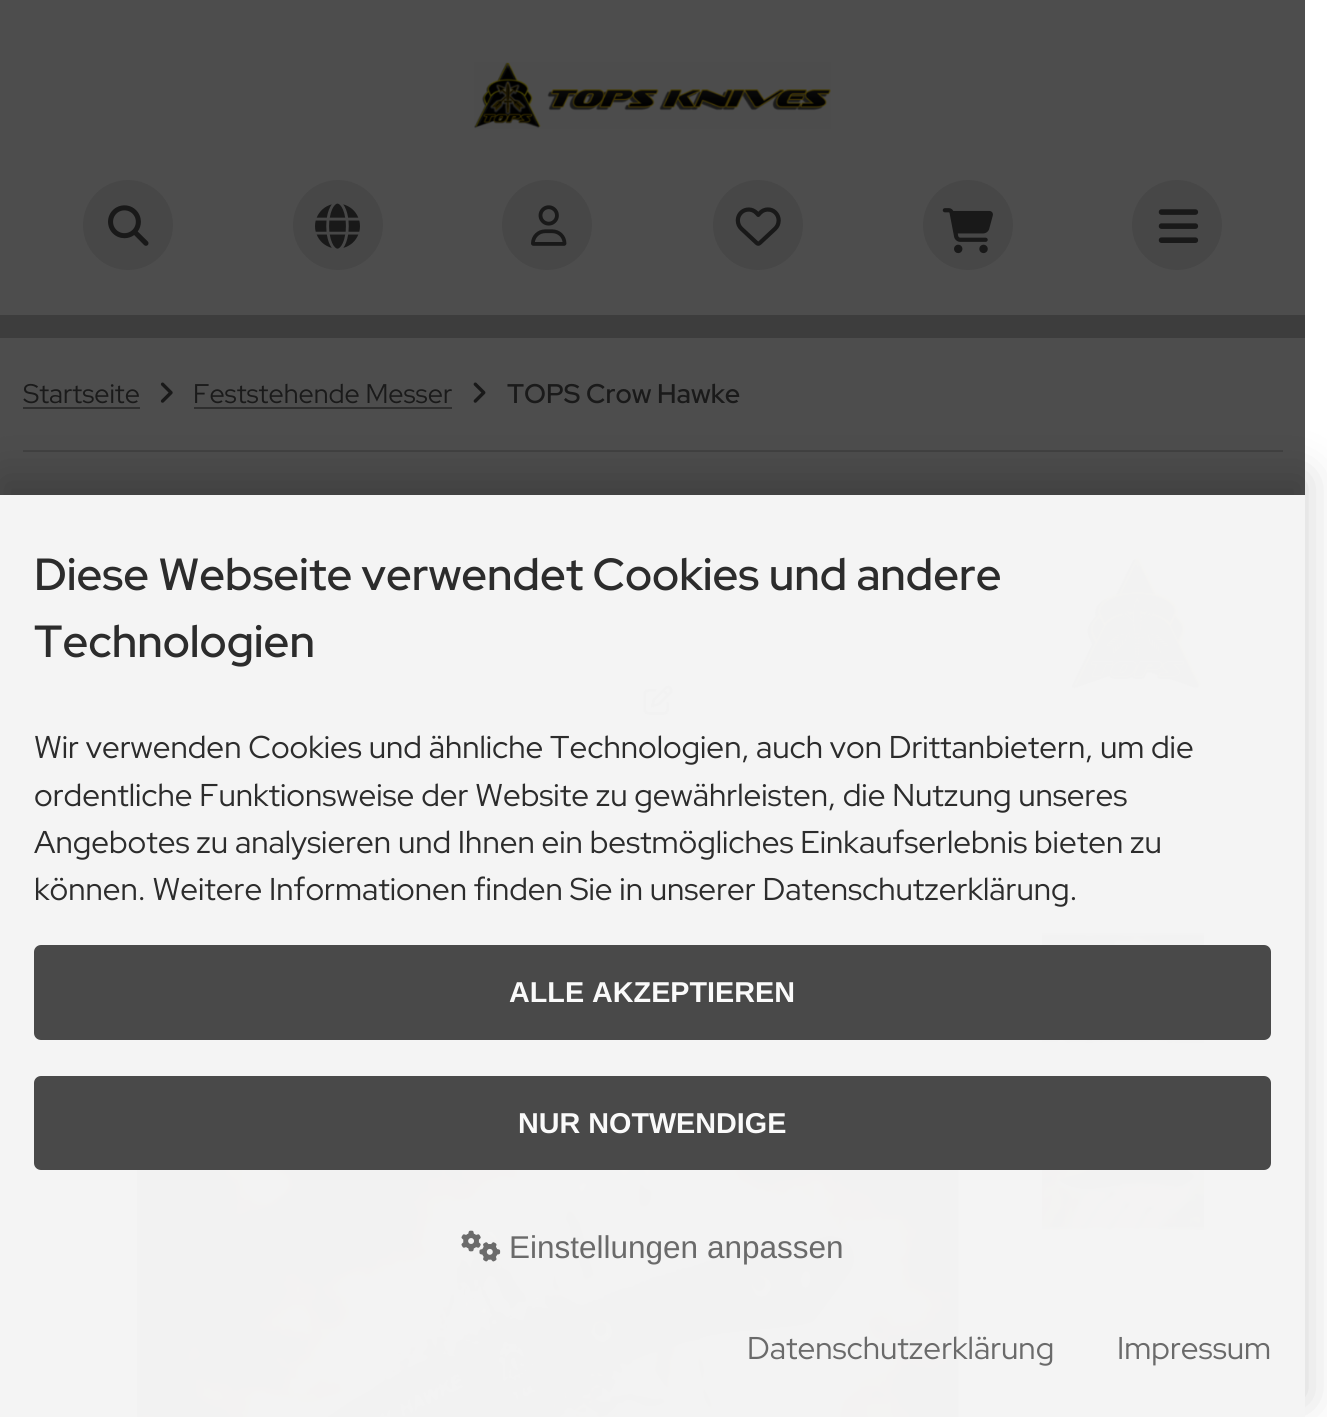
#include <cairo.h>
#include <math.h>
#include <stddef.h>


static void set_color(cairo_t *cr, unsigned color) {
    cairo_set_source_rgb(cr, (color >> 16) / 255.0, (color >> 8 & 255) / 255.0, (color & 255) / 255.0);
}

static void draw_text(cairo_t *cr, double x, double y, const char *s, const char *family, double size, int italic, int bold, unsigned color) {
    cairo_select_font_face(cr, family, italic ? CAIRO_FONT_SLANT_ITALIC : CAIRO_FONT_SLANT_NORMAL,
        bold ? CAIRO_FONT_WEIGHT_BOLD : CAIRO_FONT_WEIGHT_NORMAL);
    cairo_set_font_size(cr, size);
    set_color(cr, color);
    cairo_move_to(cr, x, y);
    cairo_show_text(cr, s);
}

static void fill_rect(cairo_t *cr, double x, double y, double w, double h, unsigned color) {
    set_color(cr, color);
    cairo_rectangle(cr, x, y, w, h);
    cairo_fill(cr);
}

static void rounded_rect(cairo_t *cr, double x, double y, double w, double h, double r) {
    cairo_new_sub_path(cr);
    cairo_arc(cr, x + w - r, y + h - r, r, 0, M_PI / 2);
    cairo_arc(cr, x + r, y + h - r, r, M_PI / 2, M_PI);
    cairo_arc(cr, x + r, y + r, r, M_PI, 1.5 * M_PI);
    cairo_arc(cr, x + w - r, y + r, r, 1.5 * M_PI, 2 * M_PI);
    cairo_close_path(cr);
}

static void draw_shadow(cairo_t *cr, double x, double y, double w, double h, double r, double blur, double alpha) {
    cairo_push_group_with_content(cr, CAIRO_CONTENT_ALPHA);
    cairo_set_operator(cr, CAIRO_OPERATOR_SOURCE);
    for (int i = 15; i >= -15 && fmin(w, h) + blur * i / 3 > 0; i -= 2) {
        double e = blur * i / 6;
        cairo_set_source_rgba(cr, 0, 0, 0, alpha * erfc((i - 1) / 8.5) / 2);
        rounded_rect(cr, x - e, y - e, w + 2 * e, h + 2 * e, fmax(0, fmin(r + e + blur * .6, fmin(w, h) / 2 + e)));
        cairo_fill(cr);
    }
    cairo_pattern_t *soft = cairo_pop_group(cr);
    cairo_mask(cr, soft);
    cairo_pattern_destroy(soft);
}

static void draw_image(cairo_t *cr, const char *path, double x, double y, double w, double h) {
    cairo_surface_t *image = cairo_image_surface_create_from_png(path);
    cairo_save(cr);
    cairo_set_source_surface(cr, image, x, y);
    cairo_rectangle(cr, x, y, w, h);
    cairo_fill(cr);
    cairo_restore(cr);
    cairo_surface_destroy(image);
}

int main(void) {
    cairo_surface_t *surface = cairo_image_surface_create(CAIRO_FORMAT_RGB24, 1327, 1417);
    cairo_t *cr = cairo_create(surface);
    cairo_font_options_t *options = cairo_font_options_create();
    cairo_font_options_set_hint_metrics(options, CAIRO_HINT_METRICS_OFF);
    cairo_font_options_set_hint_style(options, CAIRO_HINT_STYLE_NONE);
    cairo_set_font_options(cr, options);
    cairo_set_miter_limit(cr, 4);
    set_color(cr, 0xFFFFFF);
    cairo_paint(cr);
    fill_rect(cr, 0, 0, 1305, 495, 0x4D4D4D);
    fill_rect(cr, 0, 495, 1305, 922, 0xF4F4F4);
    fill_rect(cr, 0, 315, 1305, 23, 0x3D3D3D);
    draw_image(cr, "assets/img1.png", 474, 62, 357, 67);
    set_color(cr, 0x474747);
    cairo_arc(cr, 128, 225, 45, 0, 2 * M_PI);
    cairo_fill(cr);
    draw_image(cr, "assets/img2.png", 108, 205, 41, 41);
    cairo_arc(cr, 338, 225, 45, 0, 2 * M_PI);
    cairo_fill(cr);
    draw_image(cr, "assets/img3.png", 315, 203, 45, 46);
    cairo_arc(cr, 547, 225, 45, 0, 2 * M_PI);
    cairo_fill(cr);
    draw_image(cr, "assets/img4.png", 531, 205, 36, 41);
    cairo_arc(cr, 758, 225, 45, 0, 2 * M_PI);
    cairo_fill(cr);
    draw_image(cr, "assets/img5.png", 735, 207, 46, 39);
    cairo_arc(cr, 968, 225, 45, 0, 2 * M_PI);
    cairo_fill(cr);
    draw_image(cr, "assets/img6.png", 942, 208, 51, 46);
    cairo_arc(cr, 1177, 225, 45, 0, 2 * M_PI);
    cairo_fill(cr);
    draw_image(cr, "assets/img7.png", 1158, 209, 41, 34);
    fill_rect(cr, 23, 450, 1260, 2, 0x414141);
    fill_rect(cr, 23, 407, 117, 2, 0x2E2E2E);
    draw_text(cr, 23, 403, "Startseite", "Red Hat Display", 27, 0, 0, 0x1A1A1A);
    draw_image(cr, "assets/img8.png", 160, 382, 13, 21);
    fill_rect(cr, 194, 407, 258, 2, 0x2E2E2E);
    draw_text(cr, 193, 403, "Feststehende Messer", "Red Hat Display", 27, 0, 0, 0x1A1A1A);
    draw_image(cr, "assets/img9.png", 473, 382, 13, 21);
    draw_text(cr, 507, 403, "TOPS Crow Hawke", "Red Hat Display SemiBold", 27, 0, 0, 0x1A1A1A);
    draw_image(cr, "assets/img10.png", 1066, 552, 143, 142);
    draw_image(cr, "assets/img11.png", 89, 685, 31, 30);
    draw_image(cr, "assets/img12.png", 127, 685, 31, 30);
    draw_image(cr, "assets/img12.png", 163, 685, 31, 30);
    draw_image(cr, "assets/img13.png", 201, 685, 31, 30);
    draw_image(cr, "assets/img14.png", 240, 685, 30, 30);
    draw_image(cr, "assets/img15.png", 643, 685, 30, 30);
    draw_image(cr, "assets/img16.png", 1041, 932, 163, 112);
    draw_image(cr, "assets/img17.png", 1041, 1170, 163, 62);
    draw_image(cr, "assets/img18.png", 137, 1170, 823, 247);
    cairo_save(cr);
    cairo_set_fill_rule(cr, CAIRO_FILL_RULE_EVEN_ODD);
    cairo_new_path(cr);
    cairo_move_to(cr, 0, 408);
    cairo_line_to(cr, 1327, 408);
    cairo_line_to(cr, 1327, 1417);
    cairo_line_to(cr, 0, 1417);
    cairo_close_path(cr);
    cairo_move_to(cr, 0, 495);
    cairo_line_to(cr, 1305, 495);
    cairo_line_to(cr, 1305, 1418);
    cairo_line_to(cr, 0, 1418);
    cairo_close_path(cr);
    cairo_clip(cr);
    set_color(cr, 0x000000);
    draw_shadow(cr, 0, 477, 1305, 923, 0, 22.5, 0.19);
    cairo_restore(cr);
    draw_text(cr, 34, 590, "Diese Webseite verwendet Cookies und andere", "Red Hat Display SemiBold", 45, 0, 0, 0x2C2C2C);
    draw_text(cr, 34, 657, "Technologien", "Red Hat Display SemiBold", 45, 0, 0, 0x2C2C2C);
    draw_text(cr, 34, 758, "Wir verwenden Cookies und ähnliche Technologien, auch von Drittanbietern, um die", "Red Hat Display", 31.5, 0, 0, 0x2C2C2C);
    draw_text(cr, 34, 806, "ordentliche Funktionsweise der Website zu gewährleisten, die Nutzung unseres", "Red Hat Display", 31.5, 0, 0, 0x2C2C2C);
    draw_text(cr, 34, 853, "Angebotes zu analysieren und Ihnen ein bestmögliches Einkaufserlebnis bieten zu", "Red Hat Display", 31.5, 0, 0, 0x2C2C2C);
    draw_text(cr, 34, 900, "können. Weitere Informationen finden Sie in unserer Datenschutzerklärung.", "Red Hat Display", 31.5, 0, 0, 0x2C2C2C);
    set_color(cr, 0x494949);
    rounded_rect(cr, 34, 945, 1237, 95, 7);
    cairo_fill(cr);
    draw_text(cr, 509, 1002, "ALLE AKZEPTIEREN", "Liberation Sans", 28.75, 0, 1, 0xFAFAFA);
    set_color(cr, 0x494949);
    rounded_rect(cr, 34, 1076, 1237, 94, 7);
    cairo_fill(cr);
    draw_text(cr, 518, 1133, "NUR NOTWENDIGE", "Liberation Sans", 28.75, 0, 1, 0xFAFAFA);
    draw_image(cr, "assets/img19.png", 461, 1230, 40, 32);
    draw_text(cr, 509, 1258, "Einstellungen anpassen", "Liberation Sans", 31.5, 0, 0, 0x6A6A6A);
    draw_text(cr, 747, 1359, "Datenschutzerklärung", "Red Hat Display", 31.5, 0, 0, 0x6A6A6A);
    draw_text(cr, 1117, 1359, "Impressum", "Red Hat Display", 31.5, 0, 0, 0x6A6A6A);
    cairo_surface_write_to_png(surface, "output.png");
    cairo_font_options_destroy(options);
    cairo_destroy(cr);
    cairo_surface_destroy(surface);
    return 0;
}
